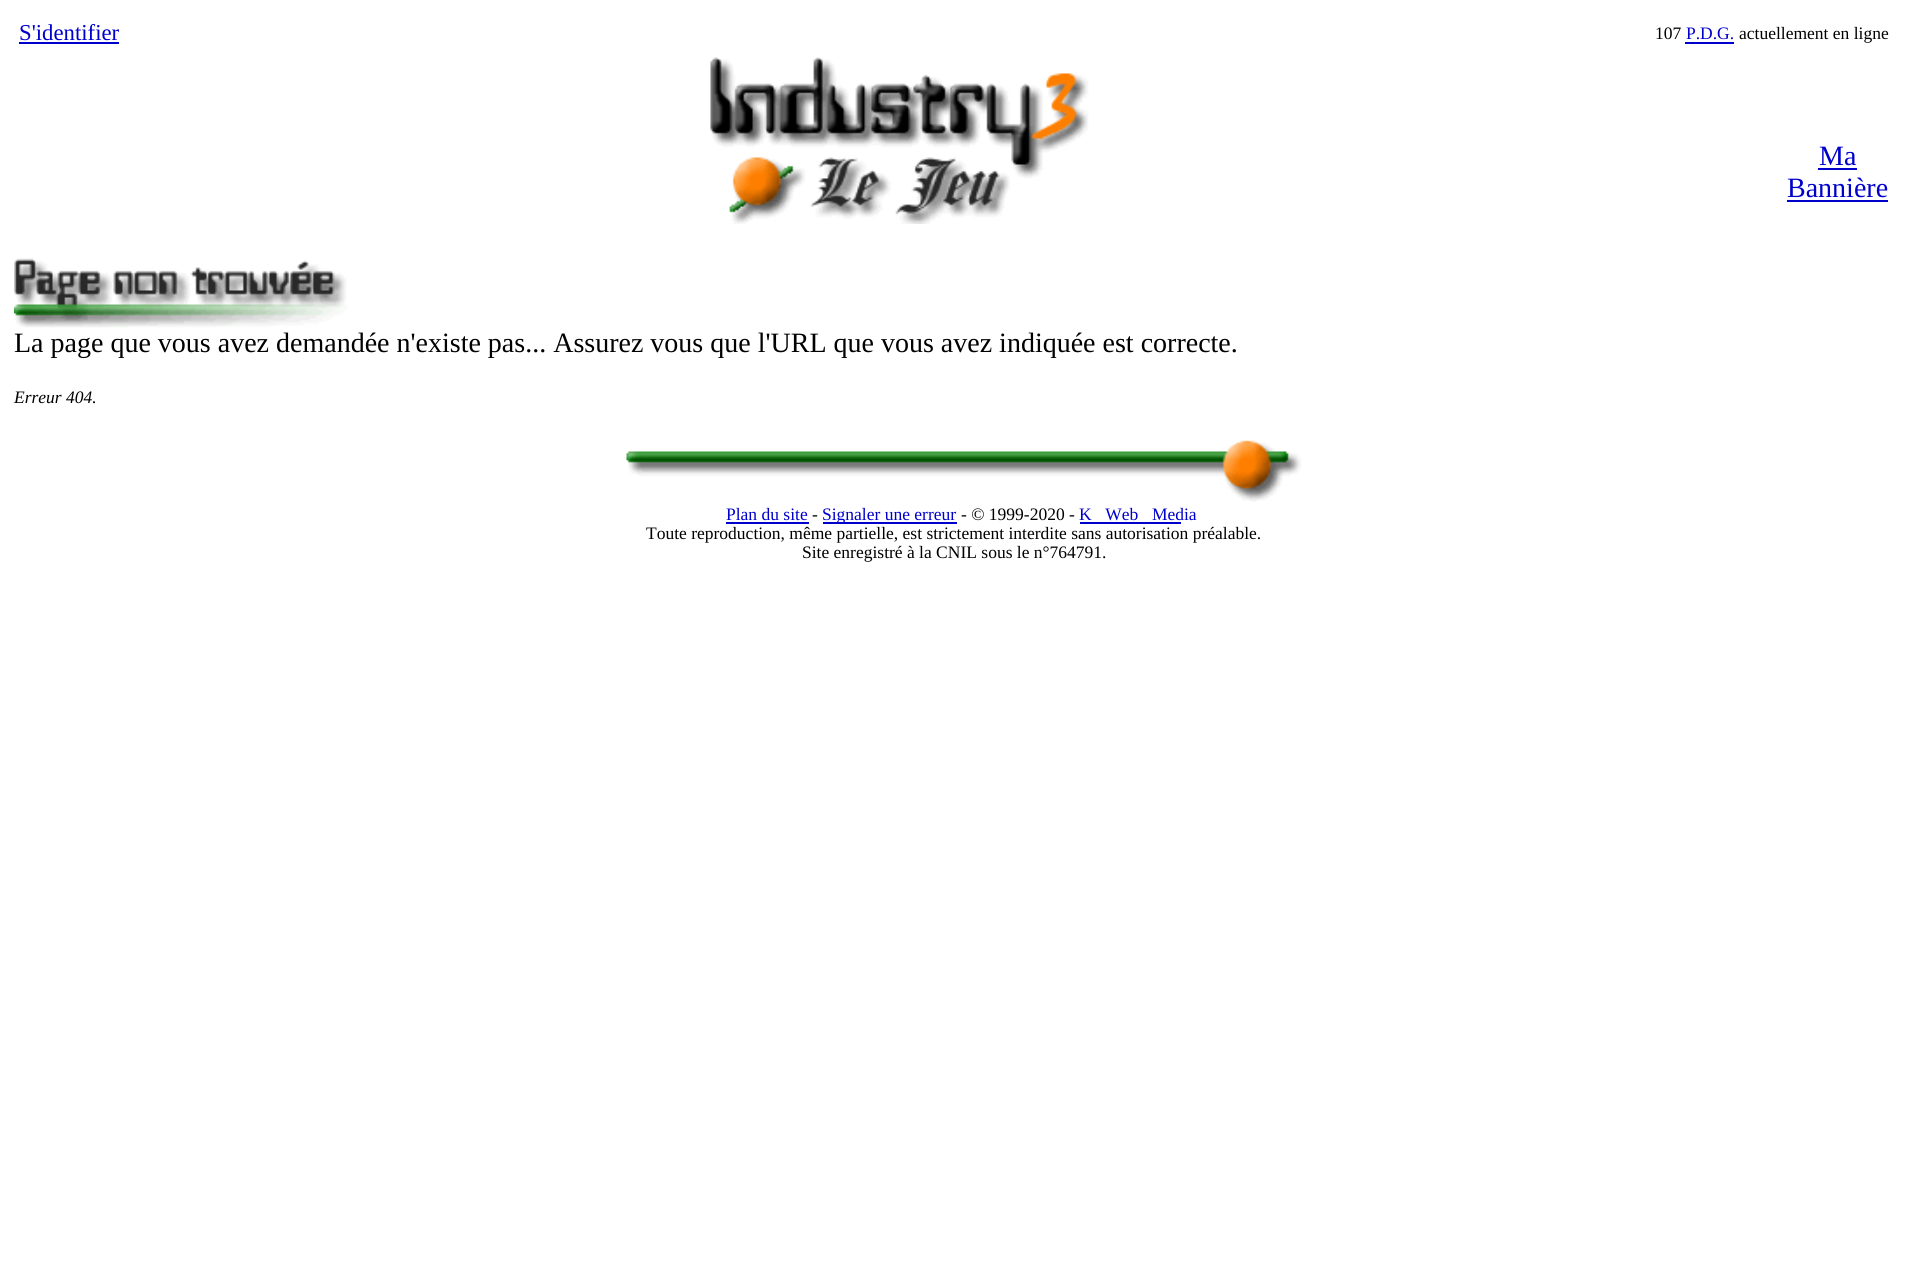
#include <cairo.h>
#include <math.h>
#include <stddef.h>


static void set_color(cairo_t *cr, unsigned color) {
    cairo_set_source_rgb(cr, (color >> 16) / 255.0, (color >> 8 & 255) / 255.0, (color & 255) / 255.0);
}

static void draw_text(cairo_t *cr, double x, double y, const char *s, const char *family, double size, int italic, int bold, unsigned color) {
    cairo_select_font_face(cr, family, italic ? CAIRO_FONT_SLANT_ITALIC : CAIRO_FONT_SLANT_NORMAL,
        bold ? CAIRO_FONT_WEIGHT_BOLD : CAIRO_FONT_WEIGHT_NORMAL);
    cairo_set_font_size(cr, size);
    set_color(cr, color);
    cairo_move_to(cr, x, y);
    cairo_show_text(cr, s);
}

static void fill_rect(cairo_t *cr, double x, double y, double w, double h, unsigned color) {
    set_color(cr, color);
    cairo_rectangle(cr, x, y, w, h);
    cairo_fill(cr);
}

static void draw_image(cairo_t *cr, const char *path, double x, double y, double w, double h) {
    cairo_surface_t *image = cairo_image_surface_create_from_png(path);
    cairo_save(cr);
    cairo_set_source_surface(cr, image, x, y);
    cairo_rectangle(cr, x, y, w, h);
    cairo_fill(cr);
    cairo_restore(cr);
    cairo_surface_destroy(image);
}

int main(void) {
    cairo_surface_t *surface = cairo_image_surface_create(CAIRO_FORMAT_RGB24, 1907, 1279);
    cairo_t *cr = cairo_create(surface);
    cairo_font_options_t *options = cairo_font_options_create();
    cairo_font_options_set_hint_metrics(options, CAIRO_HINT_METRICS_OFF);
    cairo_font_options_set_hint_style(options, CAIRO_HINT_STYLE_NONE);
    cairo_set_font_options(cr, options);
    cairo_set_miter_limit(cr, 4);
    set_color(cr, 0xFFFFFF);
    cairo_paint(cr);
    draw_text(cr, 19, 40, "S'identifier", "Liberation Serif", 22.75, 0, 0, 0x0000CC);
    fill_rect(cr, 19, 42, 100, 2, 0x0000CC);
    draw_text(cr, 1655, 39, "107", "Liberation Serif", 17.5, 0, 0, 0x000000);
    draw_text(cr, 1686, 39, "P.D.G.", "Liberation Serif", 17.5, 0, 0, 0x0000CC);
    fill_rect(cr, 1685, 42, 49, 2, 0x0000CC);
    draw_text(cr, 1739, 39, "actuellement en ligne", "Liberation Serif", 17.5, 0, 0, 0x000000);
    draw_image(cr, "assets/img1.png", 710, 57, 379, 167);
    draw_text(cr, 1819, 165, "Ma", "Liberation Serif", 28, 0, 0, 0x0000CC);
    fill_rect(cr, 1818, 168, 39, 2, 0x0000CC);
    draw_text(cr, 1787, 197, "Bannière", "Liberation Serif", 28, 0, 0, 0x0000CC);
    fill_rect(cr, 1787, 200, 101, 2, 0x0000CC);
    draw_image(cr, "assets/img2.png", 14, 258, 334, 70);
    draw_text(cr, 14, 352, "La page que vous avez demandée n'existe pas... Assurez vous que l'URL que vous avez indiquée est correcte.", "Liberation Serif", 28, 0, 0, 0x000000);
    draw_text(cr, 14, 403, "Erreur 404.", "Liberation Serif", 17.5, 1, 0, 0x000000);
    draw_image(cr, "assets/img3.png", 626, 440, 676, 62);
    draw_text(cr, 726, 520, "Plan du site", "Liberation Serif", 17.5, 0, 0, 0x0000CC);
    draw_text(cr, 812, 520, "-", "Liberation Serif", 17.5, 0, 0, 0x000000);
    fill_rect(cr, 726, 522, 83, 2, 0x0000CC);
    fill_rect(cr, 823, 522, 134, 2, 0x0000CC);
    draw_text(cr, 822, 520, "Signaler une erreur", "Liberation Serif", 17.5, 0, 0, 0x0000CC);
    draw_text(cr, 961, 520, "- © 1999-2020 -", "Liberation Serif", 17.5, 0, 0, 0x000000);
    draw_text(cr, 1079, 520, "K‑Web‑Media", "Liberation Serif", 17.5, 0, 0, 0x0000CC);
    fill_rect(cr, 1080, 522, 101, 2, 0x0000CC);
    draw_text(cr, 646, 539, "Toute reproduction, même partielle, est strictement interdite sans autorisation préalable.", "Liberation Serif", 17.5, 0, 0, 0x000000);
    draw_text(cr, 802, 558, "Site enregistré à la CNIL sous le n°764791.", "Liberation Serif", 17.5, 0, 0, 0x000000);
    cairo_surface_write_to_png(surface, "output.png");
    cairo_font_options_destroy(options);
    cairo_destroy(cr);
    cairo_surface_destroy(surface);
    return 0;
}
